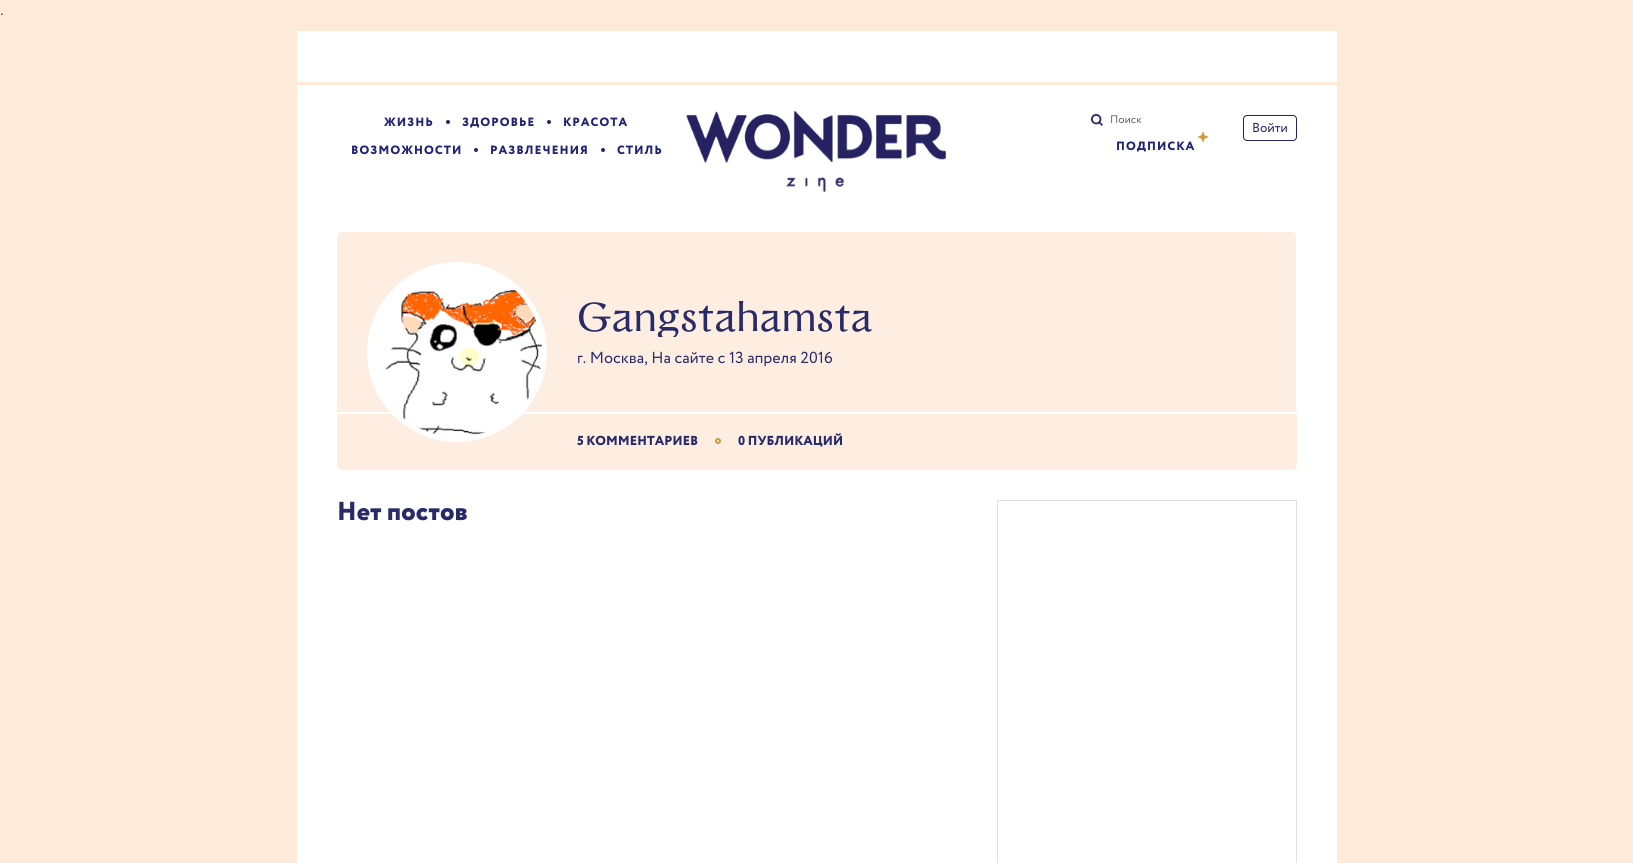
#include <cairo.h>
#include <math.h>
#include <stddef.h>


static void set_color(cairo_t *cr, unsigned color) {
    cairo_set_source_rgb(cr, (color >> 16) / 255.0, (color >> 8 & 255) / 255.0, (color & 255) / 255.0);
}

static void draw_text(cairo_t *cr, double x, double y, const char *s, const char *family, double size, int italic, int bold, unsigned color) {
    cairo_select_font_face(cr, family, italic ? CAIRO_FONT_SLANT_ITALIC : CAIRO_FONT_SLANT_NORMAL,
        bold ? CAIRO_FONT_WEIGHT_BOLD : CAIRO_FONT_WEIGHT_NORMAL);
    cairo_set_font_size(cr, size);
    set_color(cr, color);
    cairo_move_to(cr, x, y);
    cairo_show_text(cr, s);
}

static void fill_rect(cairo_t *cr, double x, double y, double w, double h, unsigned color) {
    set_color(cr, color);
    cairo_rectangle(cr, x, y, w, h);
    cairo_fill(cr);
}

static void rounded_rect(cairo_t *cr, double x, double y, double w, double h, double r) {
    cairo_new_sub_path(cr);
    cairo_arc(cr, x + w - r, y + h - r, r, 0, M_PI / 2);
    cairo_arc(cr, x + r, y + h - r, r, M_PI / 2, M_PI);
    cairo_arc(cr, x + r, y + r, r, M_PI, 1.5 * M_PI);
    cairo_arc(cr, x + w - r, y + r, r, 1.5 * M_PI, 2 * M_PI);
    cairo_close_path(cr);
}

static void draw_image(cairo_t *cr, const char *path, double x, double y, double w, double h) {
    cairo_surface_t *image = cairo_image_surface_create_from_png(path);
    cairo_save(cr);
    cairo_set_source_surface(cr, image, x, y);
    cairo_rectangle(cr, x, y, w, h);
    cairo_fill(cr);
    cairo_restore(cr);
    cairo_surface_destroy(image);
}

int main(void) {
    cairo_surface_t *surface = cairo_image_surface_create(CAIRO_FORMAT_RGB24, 1633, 863);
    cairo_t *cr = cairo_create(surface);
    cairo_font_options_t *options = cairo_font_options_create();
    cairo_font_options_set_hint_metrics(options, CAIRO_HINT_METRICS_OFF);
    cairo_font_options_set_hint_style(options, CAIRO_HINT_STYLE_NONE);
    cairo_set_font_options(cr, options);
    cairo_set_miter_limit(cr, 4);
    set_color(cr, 0xFFEADA);
    cairo_paint(cr);
    draw_text(cr, 0, 15, ".", "Liberation Sans", 14, 0, 0, 0x262626);
    fill_rect(cr, 297, 31, 1040, 51, 0xFFFFFF);
    fill_rect(cr, 297, 85, 1040, 117, 0xFFFFFF);
    draw_image(cr, "assets/img1.png", 384, 117, 49, 10);
    set_color(cr, 0x262261);
    cairo_arc(cr, 448, 122, 2, 0, 2 * M_PI);
    cairo_fill(cr);
    draw_image(cr, "assets/img2.png", 462, 117, 72, 11);
    cairo_arc(cr, 549, 122, 2, 0, 2 * M_PI);
    cairo_fill(cr);
    draw_image(cr, "assets/img3.png", 564, 117, 64, 10);
    draw_image(cr, "assets/img4.png", 352, 145, 109, 10);
    cairo_arc(cr, 476, 150, 2, 0, 2 * M_PI);
    cairo_fill(cr);
    draw_image(cr, "assets/img5.png", 491, 145, 96, 10);
    cairo_arc(cr, 603, 150, 2, 0, 2 * M_PI);
    cairo_fill(cr);
    draw_image(cr, "assets/img6.png", 617, 145, 45, 10);
    draw_image(cr, "assets/img7.png", 686, 111, 260, 53);
    draw_image(cr, "assets/img8.png", 786, 177, 59, 15);
    draw_image(cr, "assets/img9.png", 1091, 114, 12, 12);
    draw_image(cr, "assets/img10.png", 1111, 115, 31, 9);
    rounded_rect(cr, 1243.5, 115.5, 53, 25, 3.5);
    cairo_set_line_width(cr, 1);
    cairo_stroke(cr);
    draw_image(cr, "assets/img11.png", 1253, 122, 34, 11);
    draw_image(cr, "assets/img12.png", 1197, 131, 12, 12);
    draw_image(cr, "assets/img13.png", 1117, 141, 78, 11);
    fill_rect(cr, 297, 202, 999, 268, 0xFFFFFF);
    set_color(cr, 0xFEEEE2);
    cairo_new_path(cr);
    cairo_move_to(cr, 343, 232);
    cairo_line_to(cr, 1291, 232);
    cairo_curve_to(cr, 1294.5, 232, 1297, 234.5, 1297, 238);
    cairo_line_to(cr, 1297, 412);
    cairo_line_to(cr, 337, 412);
    cairo_line_to(cr, 337, 238);
    cairo_curve_to(cr, 337, 234.5, 339.5, 232, 343, 232);
    cairo_close_path(cr);
    cairo_fill(cr);
    fill_rect(cr, 1296, 202, 41, 268, 0xFFFFFF);
    set_color(cr, 0xFEEEE2);
    cairo_new_path(cr);
    cairo_move_to(cr, 337, 412);
    cairo_line_to(cr, 1297, 412);
    cairo_line_to(cr, 1297, 464);
    cairo_curve_to(cr, 1297, 467.5, 1294.5, 470, 1291, 470);
    cairo_line_to(cr, 343, 470);
    cairo_curve_to(cr, 339.5, 470, 337, 467.5, 337, 464);
    cairo_close_path(cr);
    cairo_fill(cr);
    fill_rect(cr, 337, 412, 960, 2, 0xFFFFFF);
    cairo_arc(cr, 457, 352, 87.5, 0, 2 * M_PI);
    cairo_fill_preserve(cr);
    cairo_set_line_width(cr, 5);
    cairo_stroke(cr);
    draw_image(cr, "assets/img14.png", 385, 290, 157, 145);
    cairo_save(cr);
    cairo_rectangle(cr, 577, 259, 540, 78);
    cairo_clip(cr);
    draw_text(cr, 577, 331, "Gangstahamsta", "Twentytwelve", 40, 0, 0, 0x282B68);
    cairo_restore(cr);
    draw_image(cr, "assets/img15.png", 578, 351, 255, 16);
    draw_image(cr, "assets/img16.png", 577, 435, 121, 11);
    draw_image(cr, "assets/img17.png", 715, 438, 6, 6);
    draw_image(cr, "assets/img18.png", 738, 433, 105, 14);
    fill_rect(cr, 297, 470, 1040, 393, 0xFFFFFF);
    draw_image(cr, "assets/img19.png", 339, 501, 128, 20);
    cairo_rectangle(cr, 997.5, 500.5, 299, 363);
    set_color(cr, 0xE1E1E1);
    cairo_set_line_width(cr, 1);
    cairo_stroke(cr);
    cairo_surface_write_to_png(surface, "output.png");
    cairo_font_options_destroy(options);
    cairo_destroy(cr);
    cairo_surface_destroy(surface);
    return 0;
}
